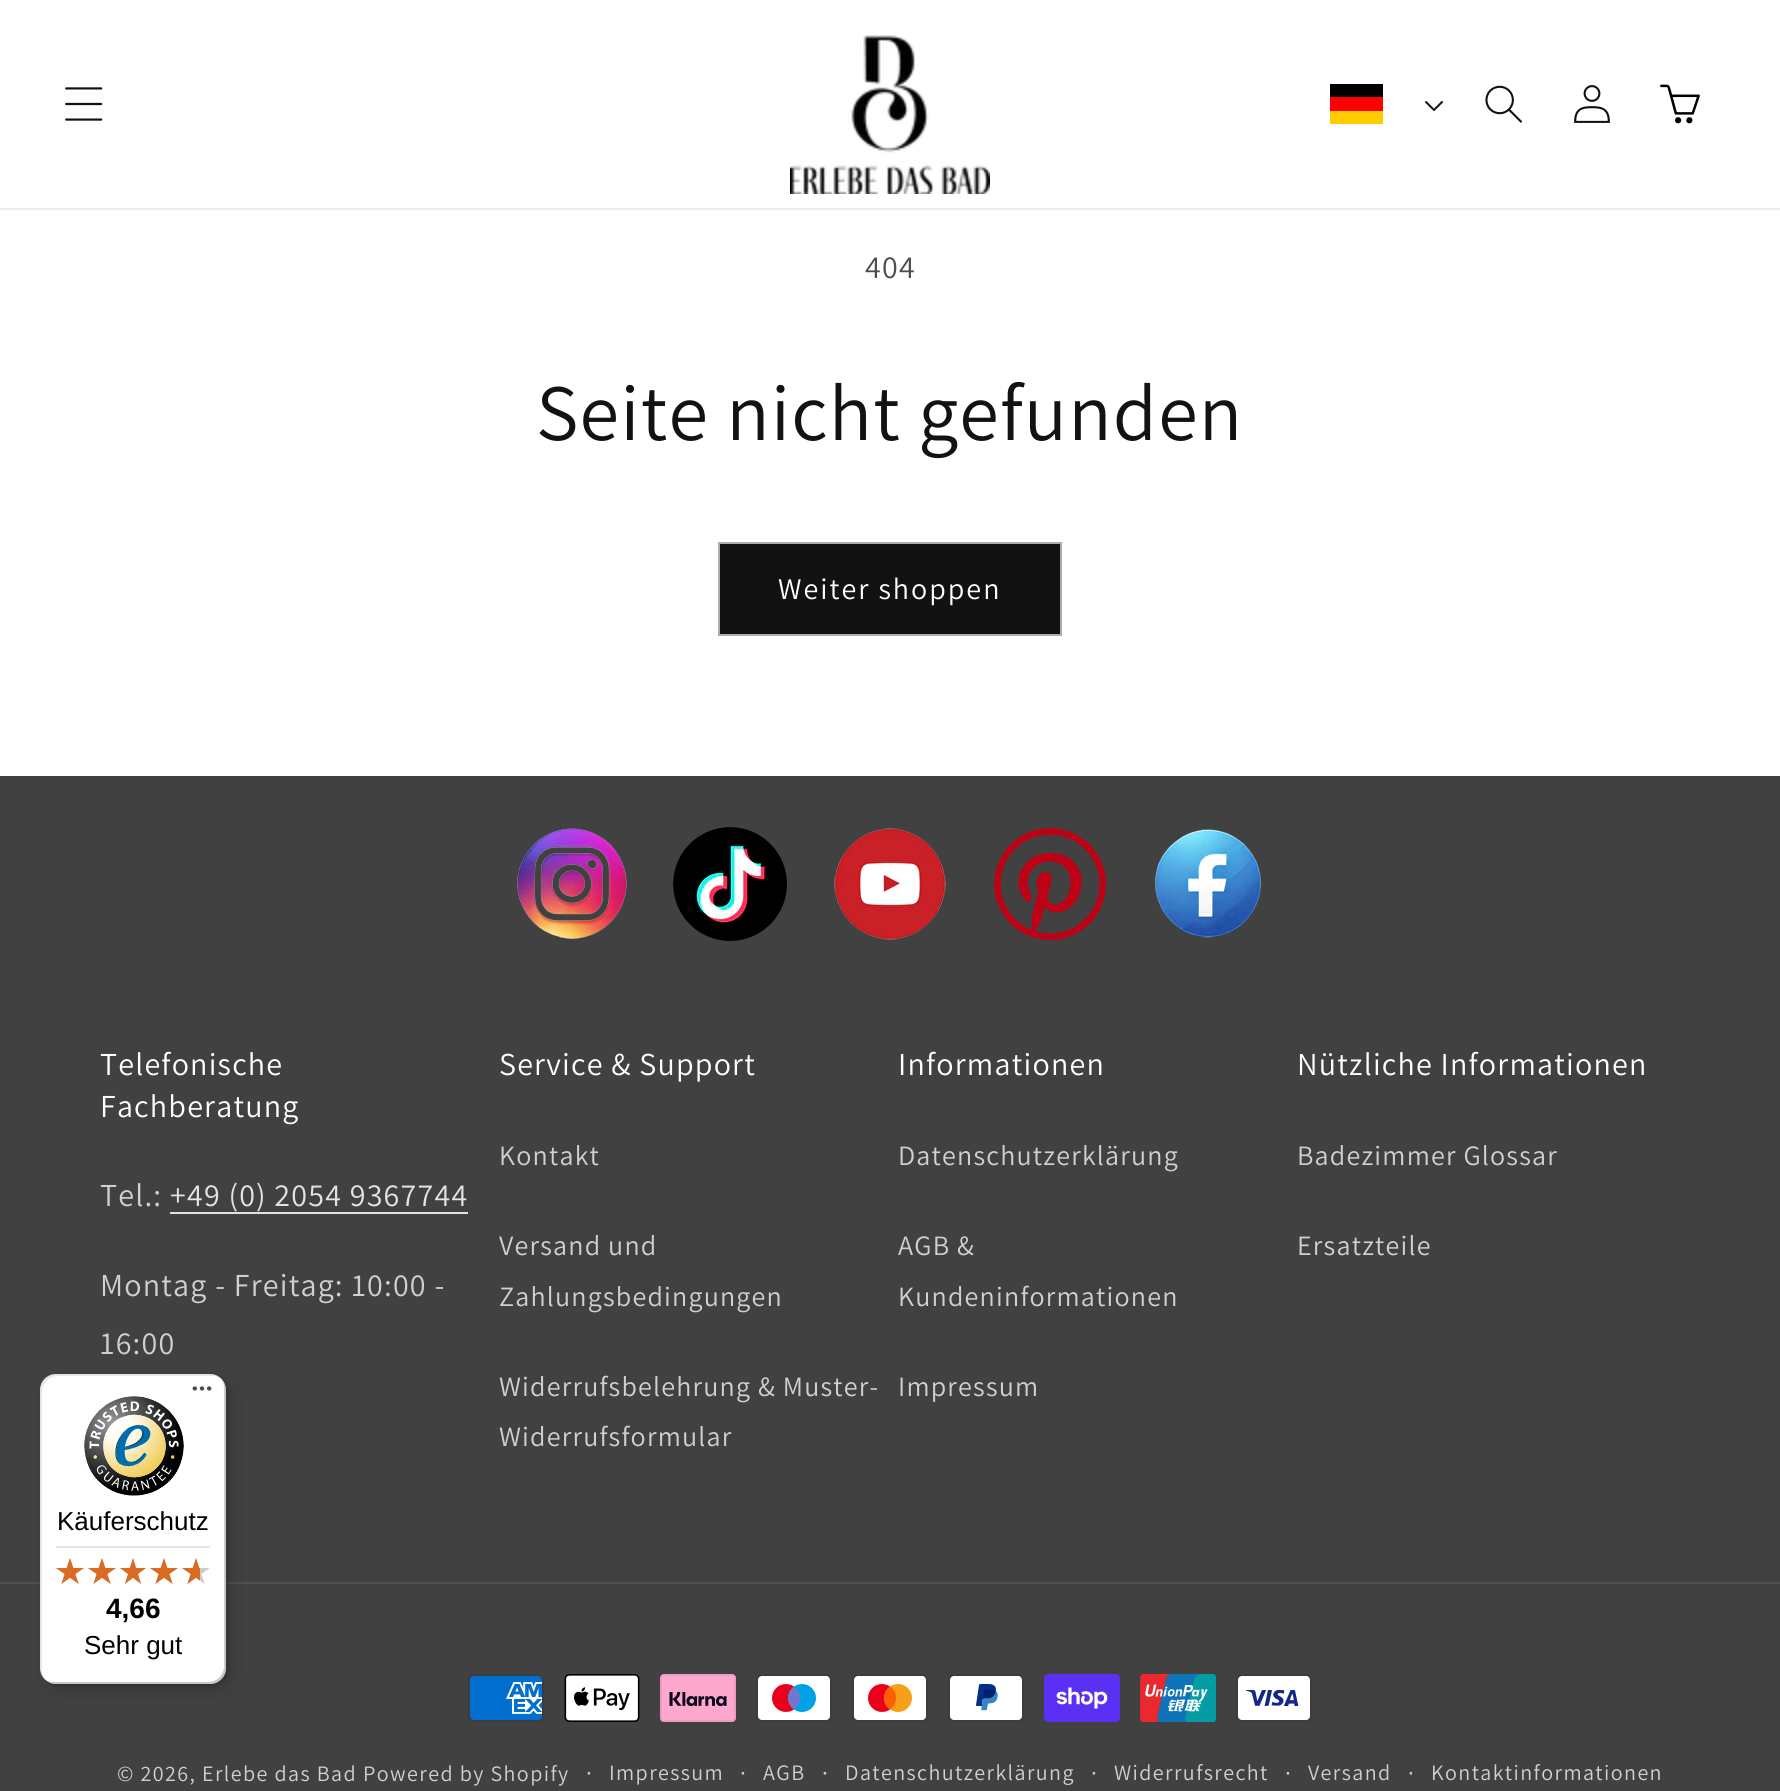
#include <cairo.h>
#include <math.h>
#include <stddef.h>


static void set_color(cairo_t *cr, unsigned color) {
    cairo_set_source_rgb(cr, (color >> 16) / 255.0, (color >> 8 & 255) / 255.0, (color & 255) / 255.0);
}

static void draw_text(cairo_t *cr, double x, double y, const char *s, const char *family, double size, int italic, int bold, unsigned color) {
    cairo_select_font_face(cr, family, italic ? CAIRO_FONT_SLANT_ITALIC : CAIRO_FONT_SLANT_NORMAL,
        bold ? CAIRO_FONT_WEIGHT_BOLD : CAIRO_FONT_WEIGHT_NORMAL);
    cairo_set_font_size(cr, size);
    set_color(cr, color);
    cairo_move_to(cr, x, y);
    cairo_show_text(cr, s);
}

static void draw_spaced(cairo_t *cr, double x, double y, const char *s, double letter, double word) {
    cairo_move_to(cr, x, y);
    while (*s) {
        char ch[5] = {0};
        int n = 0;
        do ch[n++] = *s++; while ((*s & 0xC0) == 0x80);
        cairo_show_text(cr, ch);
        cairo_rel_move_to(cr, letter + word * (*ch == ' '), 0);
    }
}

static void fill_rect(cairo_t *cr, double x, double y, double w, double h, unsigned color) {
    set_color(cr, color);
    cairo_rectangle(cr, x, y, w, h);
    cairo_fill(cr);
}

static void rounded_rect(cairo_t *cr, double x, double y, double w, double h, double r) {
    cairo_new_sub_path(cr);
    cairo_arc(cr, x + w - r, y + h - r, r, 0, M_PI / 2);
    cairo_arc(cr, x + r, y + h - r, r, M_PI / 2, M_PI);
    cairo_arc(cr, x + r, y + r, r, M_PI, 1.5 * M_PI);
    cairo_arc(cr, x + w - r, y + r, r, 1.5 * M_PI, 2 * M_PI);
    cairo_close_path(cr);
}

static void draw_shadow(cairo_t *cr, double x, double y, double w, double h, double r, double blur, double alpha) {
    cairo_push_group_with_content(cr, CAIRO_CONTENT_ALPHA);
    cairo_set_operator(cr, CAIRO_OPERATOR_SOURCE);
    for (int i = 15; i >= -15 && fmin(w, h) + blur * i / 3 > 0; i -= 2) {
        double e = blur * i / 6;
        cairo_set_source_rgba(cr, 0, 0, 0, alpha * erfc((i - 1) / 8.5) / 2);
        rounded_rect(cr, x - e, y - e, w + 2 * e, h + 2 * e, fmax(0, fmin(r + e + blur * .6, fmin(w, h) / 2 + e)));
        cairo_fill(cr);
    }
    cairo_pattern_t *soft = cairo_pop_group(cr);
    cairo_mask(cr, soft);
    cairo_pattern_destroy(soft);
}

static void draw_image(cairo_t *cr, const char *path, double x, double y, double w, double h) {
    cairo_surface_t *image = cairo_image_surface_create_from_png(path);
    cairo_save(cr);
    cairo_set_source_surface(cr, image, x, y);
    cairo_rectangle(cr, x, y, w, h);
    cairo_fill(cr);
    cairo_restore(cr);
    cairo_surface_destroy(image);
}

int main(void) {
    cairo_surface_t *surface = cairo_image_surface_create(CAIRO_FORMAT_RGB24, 1780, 1791);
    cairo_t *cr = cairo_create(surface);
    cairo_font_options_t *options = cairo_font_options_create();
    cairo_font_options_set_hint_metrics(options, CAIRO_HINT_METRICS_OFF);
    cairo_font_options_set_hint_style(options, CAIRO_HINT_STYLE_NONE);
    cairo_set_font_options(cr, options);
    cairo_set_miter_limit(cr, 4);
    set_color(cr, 0xFFFFFF);
    cairo_paint(cr);
    fill_rect(cr, 0, 208, 1780, 2, 0xECECEC);
    draw_image(cr, "assets/img1.png", 65, 87, 38, 34);
    draw_image(cr, "assets/img2.png", 790, 35, 200, 159);
    fill_rect(cr, 1330, 111, 53, 13, 0xFFCC00);
    fill_rect(cr, 1330, 84, 53, 13, 0x000000);
    fill_rect(cr, 1330, 97, 53, 14, 0xFF0000);
    draw_image(cr, "assets/img3.png", 1425, 101, 18, 10);
    draw_image(cr, "assets/img4.png", 1485, 85, 37, 38);
    draw_image(cr, "assets/img5.png", 1574, 85, 36, 38);
    draw_image(cr, "assets/img6.png", 1660, 84, 40, 40);
    cairo_select_font_face(cr, "Assistant", CAIRO_FONT_SLANT_NORMAL, CAIRO_FONT_WEIGHT_NORMAL);
    cairo_set_font_size(cr, 32);
    set_color(cr, 0x4D4D4D);
    draw_spaced(cr, 865, 278, "404", 1.2, 0);
    cairo_set_font_size(cr, 80);
    set_color(cr, 0x121212);
    draw_spaced(cr, 536, 440, "Seite nicht gefunden", 1.2, 0);
    fill_rect(cr, 720, 544, 340, 90, 0x121212);
    cairo_rectangle(cr, 719, 543, 342, 92);
    set_color(cr, 0xACACAC);
    cairo_stroke(cr);
    cairo_set_font_size(cr, 30);
    set_color(cr, 0xFFFFFF);
    draw_spaced(cr, 778, 599, "Weiter shoppen", 2, 0);
    fill_rect(cr, 0, 776, 1780, 1015, 0x414141);
    draw_image(cr, "assets/img7.png", 517, 828, 110, 111);
    draw_image(cr, "assets/img8.png", 673, 827, 114, 114);
    draw_image(cr, "assets/img9.png", 834, 828, 112, 112);
    draw_image(cr, "assets/img10.png", 994, 828, 112, 112);
    draw_image(cr, "assets/img11.png", 1155, 829, 106, 109);
    cairo_set_font_size(cr, 32);
    set_color(cr, 0xFFFFFF);
    draw_spaced(cr, 100, 1075, "Telefonische", 1.2, 0);
    draw_spaced(cr, 100, 1117, "Fachberatung", 1.2, 0);
    set_color(cr, 0xD0D0D0);
    draw_spaced(cr, 100, 1206, "Tel.:", 1.2, 0);
    set_color(cr, 0xE3E3E3);
    draw_spaced(cr, 170, 1206, "+49 (0) 2054 9367744", 1.2, 0);
    fill_rect(cr, 170, 1212, 298, 2, 0xE3E3E3);
    set_color(cr, 0xD0D0D0);
    draw_spaced(cr, 100, 1296, "Montag - Freitag: 10:00 -", 1.2, 0);
    draw_spaced(cr, 100, 1354, "16:00", 1.2, 0);
    set_color(cr, 0xFFFFFF);
    draw_spaced(cr, 499, 1075, "Service & Support", 1.2, 0);
    cairo_set_font_size(cr, 28);
    set_color(cr, 0xD0D0D0);
    draw_spaced(cr, 499, 1165, "Kontakt", 1.2, 0);
    draw_spaced(cr, 499, 1255, "Versand und", 1.2, 0);
    draw_spaced(cr, 499, 1306, "Zahlungsbedingungen", 1.2, 0);
    draw_spaced(cr, 499, 1396, "Widerrufsbelehrung & Muster-", 1.2, 0);
    draw_spaced(cr, 499, 1446, "Widerrufsformular", 1.2, 0);
    cairo_set_font_size(cr, 32);
    set_color(cr, 0xFFFFFF);
    draw_spaced(cr, 898, 1075, "Informationen", 1.2, 0);
    cairo_set_font_size(cr, 28);
    set_color(cr, 0xD0D0D0);
    draw_spaced(cr, 898, 1165, "Datenschutzerklärung", 1.2, 0);
    draw_spaced(cr, 898, 1255, "AGB &", 1.2, 0);
    draw_spaced(cr, 898, 1306, "Kundeninformationen", 1.2, 0);
    draw_spaced(cr, 898, 1396, "Impressum", 1.2, 0);
    cairo_set_font_size(cr, 32);
    set_color(cr, 0xFFFFFF);
    draw_spaced(cr, 1297, 1075, "Nützliche Informationen", 1.2, 0);
    cairo_set_font_size(cr, 28);
    set_color(cr, 0xD0D0D0);
    draw_spaced(cr, 1297, 1165, "Badezimmer Glossar", 1.2, 0);
    draw_spaced(cr, 1297, 1255, "Ersatzteile", 1.2, 0);
    fill_rect(cr, 0, 1582, 1780, 2, 0x505050);
    draw_image(cr, "assets/img12.png", 468, 1674, 76, 48);
    draw_image(cr, "assets/img13.png", 564, 1674, 76, 48);
    draw_image(cr, "assets/img14.png", 660, 1674, 76, 48);
    draw_image(cr, "assets/img15.png", 756, 1674, 76, 48);
    draw_image(cr, "assets/img16.png", 852, 1674, 76, 48);
    draw_image(cr, "assets/img17.png", 948, 1674, 76, 48);
    draw_image(cr, "assets/img18.png", 1044, 1674, 76, 48);
    draw_image(cr, "assets/img19.png", 1140, 1674, 76, 48);
    draw_image(cr, "assets/img20.png", 1236, 1674, 76, 48);
    cairo_set_font_size(cr, 22);
    set_color(cr, 0xD0D0D0);
    draw_spaced(cr, 117, 1781, "© 2026, Erlebe das Bad", 1.4, 0);
    draw_spaced(cr, 363, 1781, "Powered by Shopify", 1.4, 0);
    cairo_set_font_size(cr, 24);
    draw_spaced(cr, 586, 1781, "·", 1.4, 0);
    cairo_set_font_size(cr, 22);
    draw_spaced(cr, 609, 1780, "Impressum", 1.4, 0);
    cairo_set_font_size(cr, 24);
    draw_spaced(cr, 740, 1781, "·", 1.4, 0);
    cairo_set_font_size(cr, 22);
    draw_spaced(cr, 763, 1780, "AGB", 1.4, 0);
    cairo_set_font_size(cr, 24);
    draw_spaced(cr, 822, 1781, "·", 1.4, 0);
    cairo_set_font_size(cr, 22);
    draw_spaced(cr, 845, 1780, "Datenschutzerklärung", 1.4, 0);
    cairo_set_font_size(cr, 24);
    draw_spaced(cr, 1091, 1781, "·", 1.4, 0);
    cairo_set_font_size(cr, 22);
    draw_spaced(cr, 1114, 1780, "Widerrufsrecht", 1.4, 0);
    cairo_set_font_size(cr, 24);
    draw_spaced(cr, 1285, 1781, "·", 1.4, 0);
    cairo_set_font_size(cr, 22);
    draw_spaced(cr, 1308, 1780, "Versand", 1.4, 0);
    cairo_set_font_size(cr, 24);
    draw_spaced(cr, 1408, 1781, "·", 1.4, 0);
    cairo_set_font_size(cr, 22);
    draw_spaced(cr, 1431, 1780, "Kontaktinformationen", 1.4, 0);
    set_color(cr, 0x000000);
    draw_shadow(cr, 46, 1380, 186, 310, 16, 8, 0.15);
    draw_shadow(cr, 42, 1376, 186, 310, 16, 2, 0.15);
    set_color(cr, 0xFFFFFF);
    rounded_rect(cr, 40, 1374, 186, 310, 16);
    cairo_fill(cr);
    cairo_set_source_rgba(cr, 0, 0, 0, 0.1);
    cairo_new_path(cr);
    cairo_move_to(cr, 58, 1376);
    cairo_line_to(cr, 212, 1376);
    cairo_curve_to(cr, 216, 1376, 219, 1377, 222, 1379);
    cairo_curve_to(cr, 219, 1376, 215, 1374, 210, 1374);
    cairo_line_to(cr, 56, 1374);
    cairo_curve_to(cr, 47, 1374, 40, 1381, 40, 1390);
    cairo_line_to(cr, 40, 1668);
    cairo_curve_to(cr, 40, 1673, 42, 1677, 45, 1680);
    cairo_curve_to(cr, 43, 1677, 42, 1674, 42, 1670);
    cairo_line_to(cr, 42, 1392);
    cairo_curve_to(cr, 42, 1383, 49, 1376, 58, 1376);
    cairo_close_path(cr);
    cairo_fill(cr);
    cairo_set_source_rgba(cr, 0, 0, 0, 0.2);
    cairo_new_path(cr);
    cairo_move_to(cr, 44, 1679);
    cairo_curve_to(cr, 47, 1682, 51, 1684, 56, 1684);
    cairo_line_to(cr, 210, 1684);
    cairo_curve_to(cr, 219, 1684, 226, 1677, 226, 1668);
    cairo_line_to(cr, 226, 1390);
    cairo_curve_to(cr, 226, 1385, 224, 1381, 221, 1378);
    cairo_curve_to(cr, 223, 1381, 224, 1384, 224, 1388);
    cairo_line_to(cr, 224, 1666);
    cairo_curve_to(cr, 224, 1675, 217, 1682, 208, 1682);
    cairo_line_to(cr, 54, 1682);
    cairo_curve_to(cr, 50, 1682, 47, 1681, 44, 1679);
    cairo_close_path(cr);
    cairo_fill(cr);
    cairo_set_source_rgba(cr, 0.196, 0.196, 0.196, 0.2);
    cairo_new_path(cr);
    cairo_move_to(cr, 45, 1679);
    cairo_curve_to(cr, 48, 1682, 52, 1684, 56, 1684);
    cairo_line_to(cr, 210, 1684);
    cairo_curve_to(cr, 219, 1684, 226, 1677, 226, 1668);
    cairo_line_to(cr, 226, 1390);
    cairo_curve_to(cr, 226, 1386, 224, 1382, 221, 1379);
    cairo_curve_to(cr, 224, 1382, 225, 1385, 225, 1389);
    cairo_line_to(cr, 225, 1667);
    cairo_curve_to(cr, 225, 1676, 218, 1683, 209, 1683);
    cairo_line_to(cr, 55, 1683);
    cairo_curve_to(cr, 51, 1683, 48, 1682, 45, 1679);
    cairo_close_path(cr);
    cairo_fill(cr);
    cairo_set_source_rgba(cr, 1, 1, 1, 0.3);
    cairo_new_path(cr);
    cairo_move_to(cr, 45, 1679);
    cairo_curve_to(cr, 48, 1682, 52, 1684, 56, 1684);
    cairo_line_to(cr, 210, 1684);
    cairo_curve_to(cr, 219, 1684, 226, 1677, 226, 1668);
    cairo_line_to(cr, 226, 1390);
    cairo_curve_to(cr, 226, 1386, 224, 1382, 221, 1379);
    cairo_curve_to(cr, 224, 1382, 225, 1385, 225, 1389);
    cairo_line_to(cr, 225, 1667);
    cairo_curve_to(cr, 225, 1676, 218, 1683, 209, 1683);
    cairo_line_to(cr, 55, 1683);
    cairo_curve_to(cr, 51, 1683, 48, 1682, 45, 1679);
    cairo_close_path(cr);
    cairo_fill(cr);
    draw_image(cr, "assets/img21.png", 192, 1386, 20, 5);
    draw_image(cr, "assets/img22.png", 84, 1396, 100, 100);
    draw_text(cr, 57, 1530, "Käuferschutz", "Liberation Sans", 26, 0, 0, 0x000000);
    fill_rect(cr, 56, 1546, 154, 2, 0xE5E5E5);
    draw_image(cr, "assets/img23.png", 56, 1558, 28, 26);
    draw_image(cr, "assets/img23.png", 88, 1558, 28, 26);
    draw_image(cr, "assets/img24.png", 120, 1558, 26, 26);
    draw_image(cr, "assets/img23.png", 150, 1558, 28, 26);
    draw_image(cr, "assets/img23.png", 182, 1558, 28, 26);
    draw_image(cr, "assets/img25.png", 56, 1558, 28, 26);
    draw_image(cr, "assets/img25.png", 88, 1558, 28, 26);
    draw_image(cr, "assets/img26.png", 120, 1558, 26, 26);
    draw_image(cr, "assets/img25.png", 150, 1558, 28, 26);
    draw_image(cr, "assets/img27.png", 182, 1558, 18, 26);
    draw_text(cr, 106, 1618, "4,66", "Liberation Sans", 28, 0, 1, 0x000000);
    draw_text(cr, 84, 1654, "Sehr gut", "Liberation Sans", 26, 0, 0, 0x000000);
    cairo_surface_write_to_png(surface, "output.png");
    cairo_font_options_destroy(options);
    cairo_destroy(cr);
    cairo_surface_destroy(surface);
    return 0;
}
